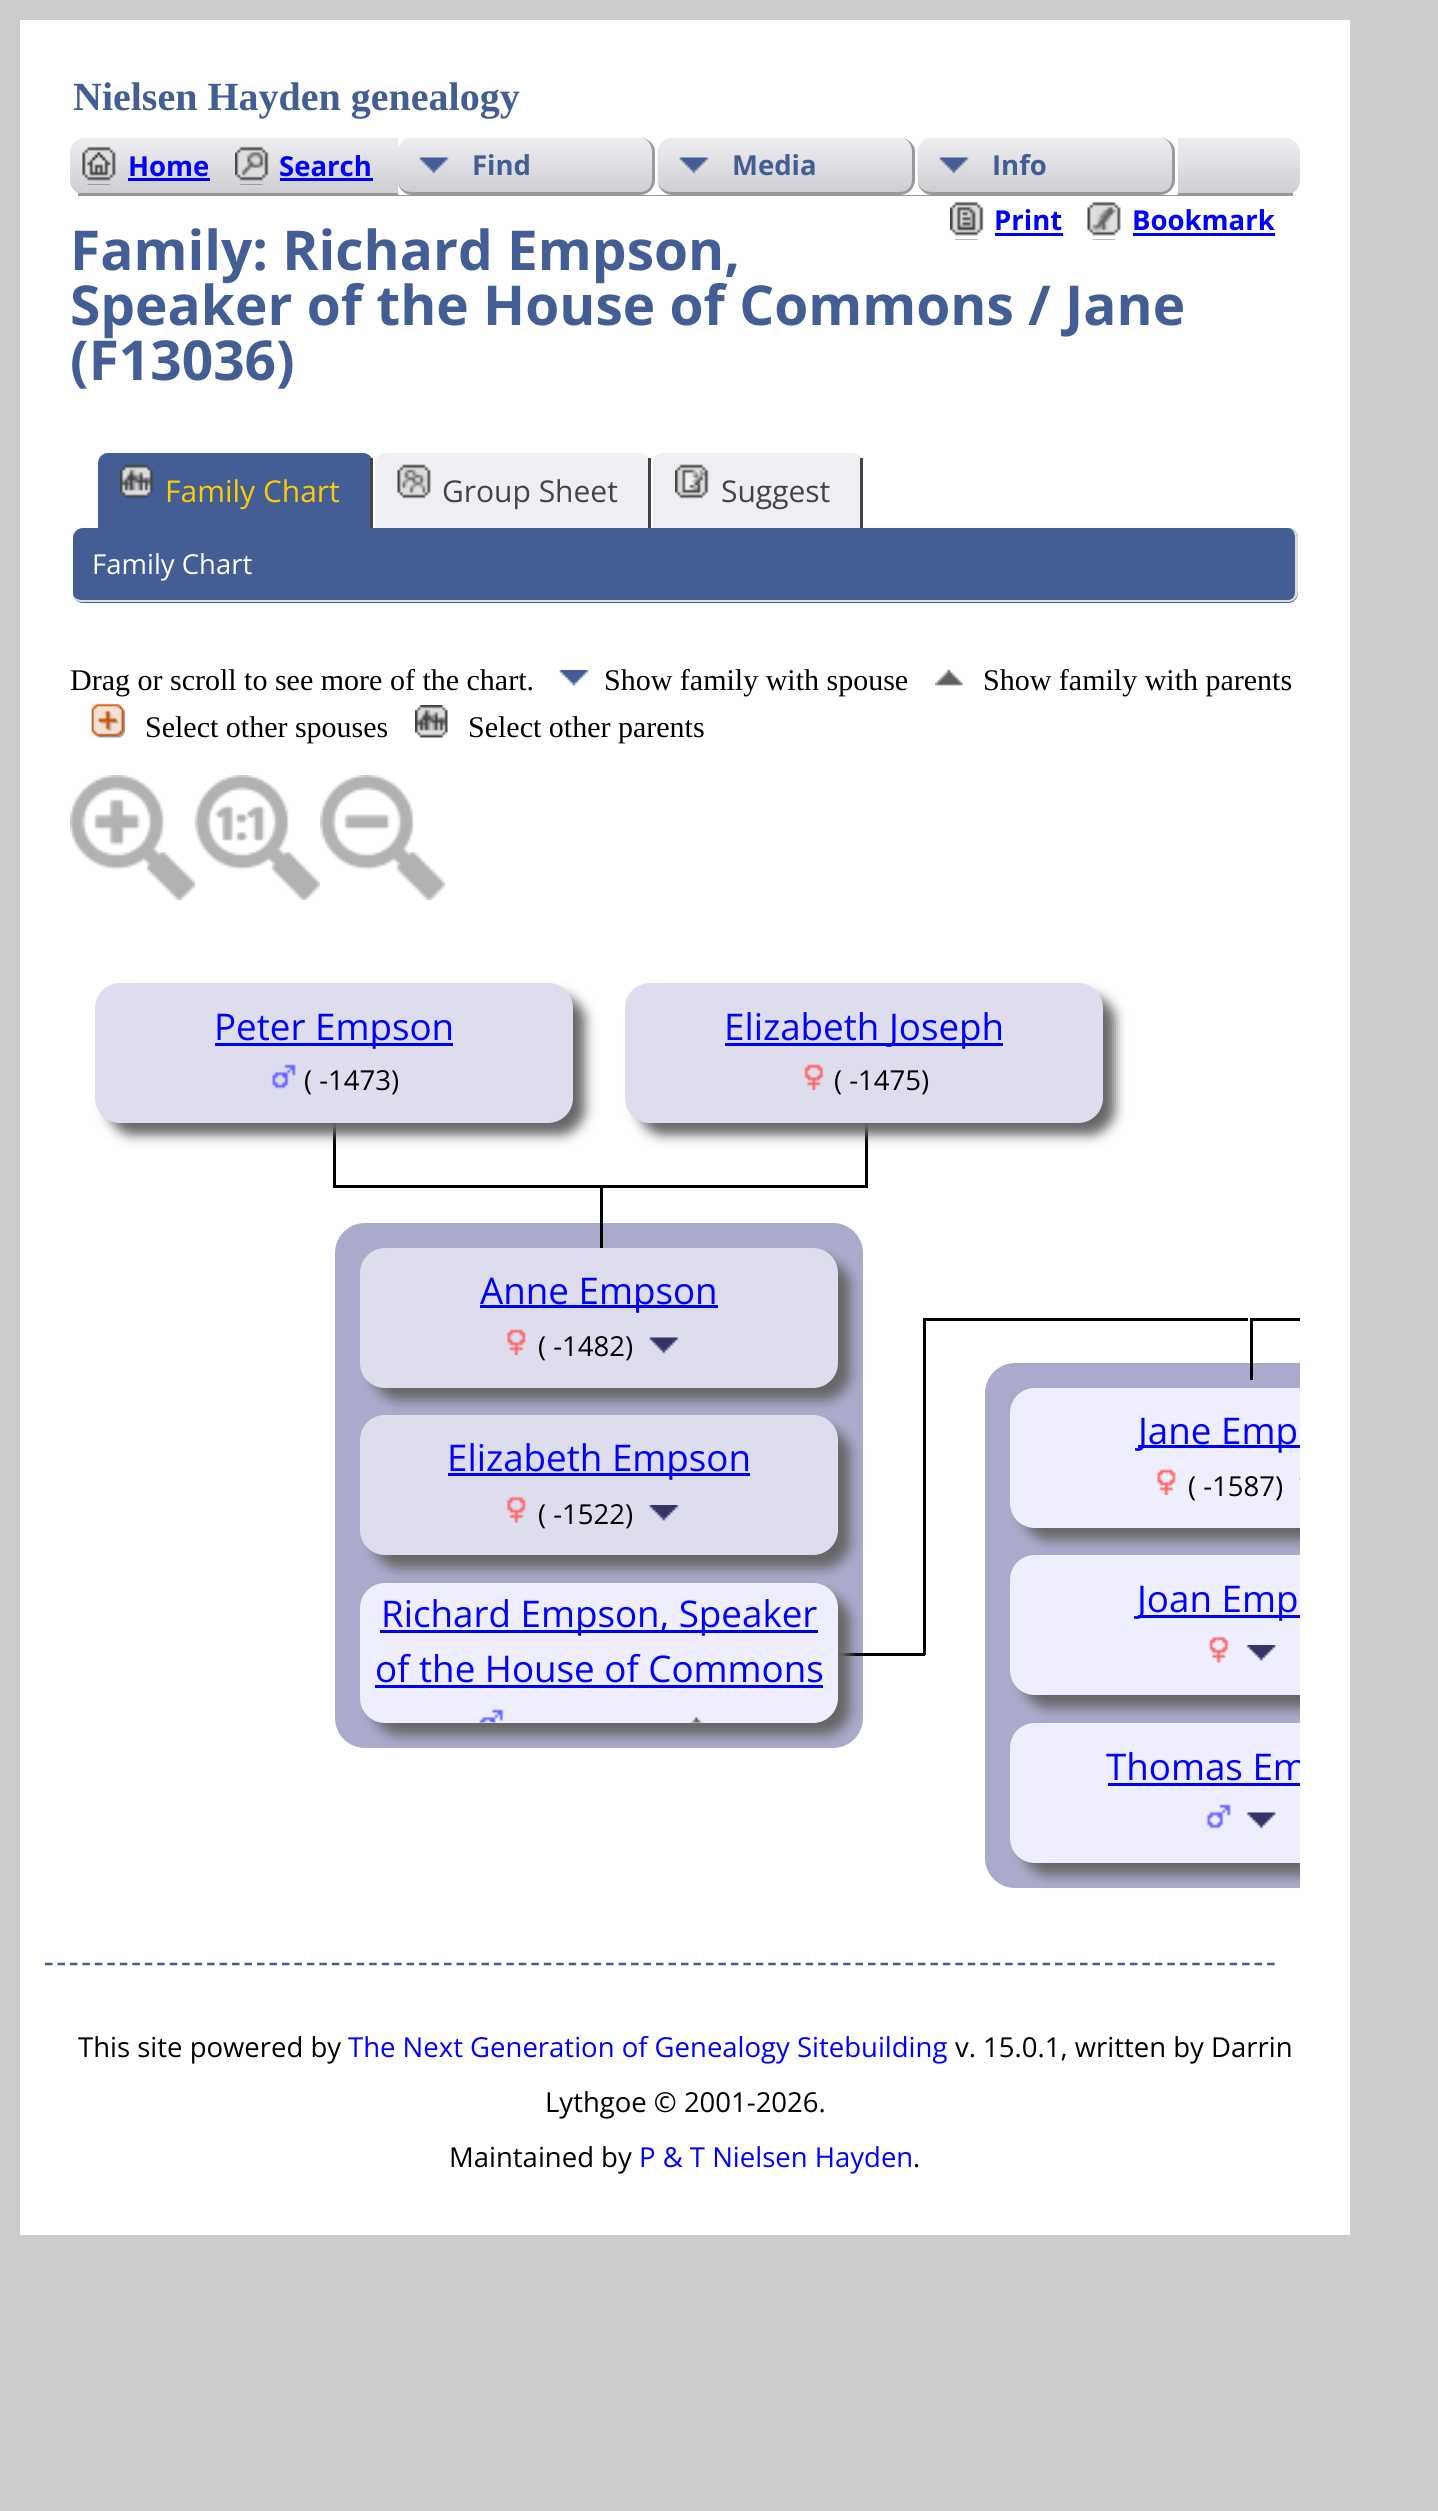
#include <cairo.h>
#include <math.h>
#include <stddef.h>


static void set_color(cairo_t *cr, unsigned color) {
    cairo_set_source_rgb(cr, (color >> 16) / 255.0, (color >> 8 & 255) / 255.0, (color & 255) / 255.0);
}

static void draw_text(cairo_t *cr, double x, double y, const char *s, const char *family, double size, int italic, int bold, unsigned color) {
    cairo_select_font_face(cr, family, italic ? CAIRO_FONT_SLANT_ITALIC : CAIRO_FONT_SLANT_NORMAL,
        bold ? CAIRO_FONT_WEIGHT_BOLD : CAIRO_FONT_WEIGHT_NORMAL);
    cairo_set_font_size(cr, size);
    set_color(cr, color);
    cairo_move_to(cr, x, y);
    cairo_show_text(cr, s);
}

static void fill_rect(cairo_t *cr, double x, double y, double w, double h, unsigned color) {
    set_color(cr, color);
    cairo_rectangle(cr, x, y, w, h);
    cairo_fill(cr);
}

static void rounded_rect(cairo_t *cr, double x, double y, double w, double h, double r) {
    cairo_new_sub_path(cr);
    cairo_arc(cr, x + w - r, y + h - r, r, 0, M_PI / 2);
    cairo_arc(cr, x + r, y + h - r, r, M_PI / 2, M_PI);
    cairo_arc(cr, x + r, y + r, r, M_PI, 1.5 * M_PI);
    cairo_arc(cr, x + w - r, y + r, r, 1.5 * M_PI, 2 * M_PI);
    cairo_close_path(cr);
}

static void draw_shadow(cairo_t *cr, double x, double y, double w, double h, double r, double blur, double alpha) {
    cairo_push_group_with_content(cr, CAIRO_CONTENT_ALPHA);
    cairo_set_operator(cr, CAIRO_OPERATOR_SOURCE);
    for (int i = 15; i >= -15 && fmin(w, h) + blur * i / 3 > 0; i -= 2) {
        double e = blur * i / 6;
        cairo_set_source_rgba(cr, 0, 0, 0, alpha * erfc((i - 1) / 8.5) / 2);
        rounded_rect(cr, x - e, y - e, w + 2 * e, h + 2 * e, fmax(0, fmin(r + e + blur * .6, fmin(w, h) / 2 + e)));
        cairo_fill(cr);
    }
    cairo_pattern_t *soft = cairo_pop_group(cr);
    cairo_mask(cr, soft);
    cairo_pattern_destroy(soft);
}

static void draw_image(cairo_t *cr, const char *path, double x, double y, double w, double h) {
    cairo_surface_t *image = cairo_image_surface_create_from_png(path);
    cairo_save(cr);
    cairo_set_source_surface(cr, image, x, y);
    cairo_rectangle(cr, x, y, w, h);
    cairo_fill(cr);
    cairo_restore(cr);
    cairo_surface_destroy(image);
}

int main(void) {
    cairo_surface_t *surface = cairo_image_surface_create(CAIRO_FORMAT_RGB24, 1438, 2511);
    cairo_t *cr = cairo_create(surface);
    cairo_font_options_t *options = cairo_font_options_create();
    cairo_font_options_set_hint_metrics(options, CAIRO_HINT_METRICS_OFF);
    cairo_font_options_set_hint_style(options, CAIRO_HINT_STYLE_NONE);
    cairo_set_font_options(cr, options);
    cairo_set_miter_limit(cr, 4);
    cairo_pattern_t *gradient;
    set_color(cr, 0xCCCCCC);
    cairo_paint(cr);
    fill_rect(cr, 20, 20, 1330, 2215, 0xFFFFFF);
    draw_text(cr, 73, 110, "Nielsen Hayden genealogy", "Liberation Serif", 40, 0, 1, 0x435E95);
    set_color(cr, 0xEEEEF3);
    rounded_rect(cr, 70, 138, 1230, 57, 15);
    cairo_fill(cr);
    cairo_save(cr);
    rounded_rect(cr, 70, 138, 1230, 57, 15);
    cairo_clip(cr);
    gradient = cairo_pattern_create_linear(685, 137, 685, 193);
    cairo_pattern_add_color_stop_rgba(gradient, 0, 0.933, 0.933, 0.953, 1);
    cairo_pattern_add_color_stop_rgba(gradient, 1, 0.808, 0.808, 0.827, 1);
    cairo_set_source(cr, gradient);
    cairo_pattern_destroy(gradient);
    cairo_new_path(cr);
    cairo_move_to(cr, 85, 138);
    cairo_line_to(cr, 1285, 138);
    cairo_curve_to(cr, 1293.5, 138, 1300, 144.5, 1300, 153);
    cairo_line_to(cr, 1300, 193);
    cairo_line_to(cr, 70, 193);
    cairo_line_to(cr, 70, 153);
    cairo_curve_to(cr, 70, 144.5, 76.5, 138, 85, 138);
    cairo_close_path(cr);
    cairo_fill(cr);
    cairo_restore(cr);
    fill_rect(cr, 78, 193, 1215, 3, 0x999999);
    draw_image(cr, "assets/img1.png", 82, 146, 34, 39);
    draw_text(cr, 128, 176, "Home", "Open Sans", 27.5, 0, 1, 0x0000FF);
    fill_rect(cr, 128, 178, 82, 3, 0x0000FF);
    draw_image(cr, "assets/img2.png", 235, 146, 34, 39);
    draw_text(cr, 279, 176, "Search", "Open Sans", 27.5, 0, 1, 0x0000FF);
    fill_rect(cr, 280, 178, 93, 3, 0x0000FF);
    fill_rect(cr, 398, 138, 780, 57, 0xFFFFFF);
    draw_image(cr, "assets/img3.png", 398, 137, 255, 56);
    set_color(cr, 0x999999);
    cairo_set_fill_rule(cr, CAIRO_FILL_RULE_EVEN_ODD);
    cairo_new_path(cr);
    cairo_move_to(cr, 412, 138);
    cairo_line_to(cr, 640, 138);
    cairo_curve_to(cr, 648, 138, 655, 144, 655, 152);
    cairo_line_to(cr, 655, 180);
    cairo_curve_to(cr, 655, 188, 648, 195, 640, 195);
    cairo_line_to(cr, 412, 195);
    cairo_curve_to(cr, 404, 195, 398, 188, 398, 180);
    cairo_line_to(cr, 398, 152);
    cairo_curve_to(cr, 398, 144, 404, 138, 412, 138);
    cairo_close_path(cr);
    cairo_move_to(cr, 412, 138);
    cairo_line_to(cr, 640, 138);
    cairo_curve_to(cr, 647, 138, 652, 144, 652, 152);
    cairo_line_to(cr, 652, 180);
    cairo_curve_to(cr, 652, 187, 647, 192, 640, 192);
    cairo_line_to(cr, 412, 192);
    cairo_curve_to(cr, 404, 192, 398, 187, 398, 180);
    cairo_line_to(cr, 398, 152);
    cairo_curve_to(cr, 398, 144, 404, 138, 412, 138);
    cairo_close_path(cr);
    cairo_fill(cr);
    draw_text(cr, 472, 175, "Find", "Open Sans", 27.5, 0, 1, 0x435E95);
    draw_image(cr, "assets/img4.png", 657, 137, 256, 56);
    set_color(cr, 0x999999);
    cairo_new_path(cr);
    cairo_move_to(cr, 672, 138);
    cairo_line_to(cr, 900, 138);
    cairo_curve_to(cr, 908, 138, 915, 144, 915, 152);
    cairo_line_to(cr, 915, 180);
    cairo_curve_to(cr, 915, 188, 908, 195, 900, 195);
    cairo_line_to(cr, 672, 195);
    cairo_curve_to(cr, 664, 195, 658, 188, 658, 180);
    cairo_line_to(cr, 658, 152);
    cairo_curve_to(cr, 658, 144, 664, 138, 672, 138);
    cairo_close_path(cr);
    cairo_move_to(cr, 672, 138);
    cairo_line_to(cr, 900, 138);
    cairo_curve_to(cr, 907, 138, 912, 144, 912, 152);
    cairo_line_to(cr, 912, 180);
    cairo_curve_to(cr, 912, 187, 907, 192, 900, 192);
    cairo_line_to(cr, 672, 192);
    cairo_curve_to(cr, 664, 192, 658, 187, 658, 180);
    cairo_line_to(cr, 658, 152);
    cairo_curve_to(cr, 658, 144, 664, 138, 672, 138);
    cairo_close_path(cr);
    cairo_fill(cr);
    draw_text(cr, 732, 175, "Media", "Open Sans", 27.5, 0, 1, 0x435E95);
    draw_image(cr, "assets/img5.png", 917, 137, 256, 56);
    set_color(cr, 0x999999);
    cairo_new_path(cr);
    cairo_move_to(cr, 932, 138);
    cairo_line_to(cr, 1160, 138);
    cairo_curve_to(cr, 1168, 138, 1175, 144, 1175, 152);
    cairo_line_to(cr, 1175, 180);
    cairo_curve_to(cr, 1175, 188, 1168, 195, 1160, 195);
    cairo_line_to(cr, 932, 195);
    cairo_curve_to(cr, 924, 195, 918, 188, 918, 180);
    cairo_line_to(cr, 918, 152);
    cairo_curve_to(cr, 918, 144, 924, 138, 932, 138);
    cairo_close_path(cr);
    cairo_move_to(cr, 932, 138);
    cairo_line_to(cr, 1160, 138);
    cairo_curve_to(cr, 1167, 138, 1172, 144, 1172, 152);
    cairo_line_to(cr, 1172, 180);
    cairo_curve_to(cr, 1172, 187, 1167, 192, 1160, 192);
    cairo_line_to(cr, 932, 192);
    cairo_curve_to(cr, 924, 192, 918, 187, 918, 180);
    cairo_line_to(cr, 918, 152);
    cairo_curve_to(cr, 918, 144, 924, 138, 932, 138);
    cairo_close_path(cr);
    cairo_fill(cr);
    draw_text(cr, 992, 175, "Info", "Open Sans", 27.5, 0, 1, 0x435E95);
    draw_image(cr, "assets/img6.png", 950, 201, 34, 39);
    draw_text(cr, 994, 230, "Print", "Open Sans", 27.5, 0, 1, 0x0000FF);
    fill_rect(cr, 995, 233, 68, 3, 0x0000FF);
    draw_image(cr, "assets/img7.png", 1087, 201, 34, 39);
    draw_text(cr, 1132, 230, "Bookmark", "Open Sans", 27.5, 0, 1, 0x0000FF);
    fill_rect(cr, 1133, 233, 142, 3, 0x0000FF);
    draw_text(cr, 70, 270, "Family: Richard Empson,", "Open Sans", 55, 0, 1, 0x435E95);
    draw_text(cr, 70, 325, "Speaker of the House of Commons / Jane", "Open Sans", 55, 0, 1, 0x435E95);
    draw_text(cr, 70, 380, "(F13036)", "Open Sans", 55, 0, 1, 0x435E95);
    cairo_new_path(cr);
    cairo_move_to(cr, 108, 453);
    cairo_line_to(cr, 363, 453);
    cairo_curve_to(cr, 368.5, 453, 373, 457.5, 373, 463);
    cairo_line_to(cr, 373, 528);
    cairo_line_to(cr, 98, 528);
    cairo_line_to(cr, 98, 463);
    cairo_curve_to(cr, 98, 457.5, 102.5, 453, 108, 453);
    cairo_close_path(cr);
    cairo_fill(cr);
    fill_rect(cr, 370, 458, 3, 70, 0x444444);
    draw_image(cr, "assets/img8.png", 120, 464, 34, 35);
    draw_text(cr, 165, 502, "Family Chart", "Open Sans", 30, 0, 0, 0xFFCC00);
    set_color(cr, 0xEEEEF3);
    cairo_new_path(cr);
    cairo_move_to(cr, 385, 453);
    cairo_line_to(cr, 640, 453);
    cairo_curve_to(cr, 645.5, 453, 650, 457.5, 650, 463);
    cairo_line_to(cr, 650, 528);
    cairo_line_to(cr, 375, 528);
    cairo_line_to(cr, 375, 463);
    cairo_curve_to(cr, 375, 457.5, 379.5, 453, 385, 453);
    cairo_close_path(cr);
    cairo_fill(cr);
    fill_rect(cr, 648, 458, 3, 70, 0x444444);
    draw_image(cr, "assets/img9.png", 397, 464, 34, 35);
    draw_text(cr, 442, 502, "Group Sheet", "Open Sans", 30, 0, 0, 0x444444);
    set_color(cr, 0xEEEEF3);
    cairo_new_path(cr);
    cairo_move_to(cr, 663, 453);
    cairo_line_to(cr, 853, 453);
    cairo_curve_to(cr, 858.5, 453, 863, 457.5, 863, 463);
    cairo_line_to(cr, 863, 528);
    cairo_line_to(cr, 653, 528);
    cairo_line_to(cr, 653, 463);
    cairo_curve_to(cr, 653, 457.5, 657.5, 453, 663, 453);
    cairo_close_path(cr);
    cairo_fill(cr);
    fill_rect(cr, 860, 458, 3, 70, 0x444444);
    draw_image(cr, "assets/img10.png", 675, 464, 34, 35);
    draw_text(cr, 721, 502, "Suggest", "Open Sans", 30, 0, 0, 0x444444);
    set_color(cr, 0x435E95);
    rounded_rect(cr, 73, 528, 1225, 75, 10);
    cairo_fill(cr);
    set_color(cr, 0xDDDDDD);
    cairo_new_path(cr);
    cairo_move_to(cr, 82, 528);
    cairo_line_to(cr, 1288, 528);
    cairo_curve_to(cr, 1293, 528, 1298, 532, 1298, 538);
    cairo_line_to(cr, 1298, 592);
    cairo_curve_to(cr, 1298, 598, 1293, 602, 1288, 602);
    cairo_line_to(cr, 82, 602);
    cairo_curve_to(cr, 77, 602, 72, 598, 72, 592);
    cairo_line_to(cr, 72, 538);
    cairo_curve_to(cr, 72, 532, 77, 528, 82, 528);
    cairo_close_path(cr);
    cairo_move_to(cr, 82, 528);
    cairo_line_to(cr, 1288, 528);
    cairo_curve_to(cr, 1292, 528, 1295, 532, 1295, 538);
    cairo_line_to(cr, 1295, 592);
    cairo_curve_to(cr, 1295, 597, 1292, 600, 1288, 600);
    cairo_line_to(cr, 82, 600);
    cairo_curve_to(cr, 77, 600, 72, 597, 72, 592);
    cairo_line_to(cr, 72, 538);
    cairo_curve_to(cr, 72, 532, 77, 528, 82, 528);
    cairo_close_path(cr);
    cairo_fill(cr);
    draw_text(cr, 92, 574, "Family Chart", "Open Sans", 27.5, 0, 0, 0xFFFFFF);
    draw_text(cr, 70, 690, "Drag or scroll to see more of the chart.", "Liberation Serif", 30, 0, 0, 0x000000);
    draw_image(cr, "assets/img11.png", 559, 670, 30, 16);
    draw_text(cr, 604, 690, "Show family with spouse", "Liberation Serif", 30, 0, 0, 0x000000);
    draw_image(cr, "assets/img12.png", 935, 669, 28, 17);
    draw_text(cr, 983, 690, "Show family with parents", "Liberation Serif", 30, 0, 0, 0x000000);
    draw_image(cr, "assets/img13.png", 91, 703, 34, 35);
    draw_text(cr, 145, 737, "Select other spouses", "Liberation Serif", 30, 0, 0, 0x000000);
    draw_image(cr, "assets/img14.png", 415, 705, 33, 33);
    draw_text(cr, 468, 737, "Select other parents", "Liberation Serif", 30, 0, 0, 0x000000);
    draw_image(cr, "assets/img15.png", 70, 775, 125, 125);
    draw_image(cr, "assets/img16.png", 195, 775, 125, 125);
    draw_image(cr, "assets/img17.png", 320, 775, 125, 125);
    fill_rect(cr, 865, 1123, 3, 65, 0x000000);
    fill_rect(cr, 333, 1185, 535, 3, 0x000000);
    fill_rect(cr, 333, 1123, 3, 65, 0x000000);
    set_color(cr, 0x666666);
    draw_shadow(cr, 108, 995, 477, 140, 25, 6, 1);
    set_color(cr, 0xDDDDEE);
    rounded_rect(cr, 95, 983, 478, 140, 25);
    cairo_fill(cr);
    fill_rect(cr, 215, 1043, 238, 3, 0x0000FF);
    draw_text(cr, 214, 1040, "Peter Empson", "Open Sans", 36.75, 0, 0, 0x0000FF);
    draw_image(cr, "assets/img18.png", 271, 1064, 25, 25);
    draw_text(cr, 304, 1090, "( -1473)", "Open Sans", 27.5, 0, 0, 0x000000);
    set_color(cr, 0x666666);
    draw_shadow(cr, 638, 995, 477, 140, 25, 6, 1);
    set_color(cr, 0xDDDDEE);
    rounded_rect(cr, 625, 983, 478, 140, 25);
    cairo_fill(cr);
    fill_rect(cr, 725, 1043, 278, 3, 0x0000FF);
    draw_text(cr, 724, 1040, "Elizabeth Joseph", "Open Sans", 36.75, 0, 0, 0x0000FF);
    draw_image(cr, "assets/img19.png", 804, 1064, 20, 26);
    draw_text(cr, 834, 1090, "( -1475)", "Open Sans", 27.5, 0, 0, 0x000000);
    set_color(cr, 0xAAAACC);
    rounded_rect(cr, 335, 1223, 528, 525, 30);
    cairo_fill(cr);
    fill_rect(cr, 600, 1185, 3, 63, 0x000000);
    set_color(cr, 0x666666);
    draw_shadow(cr, 373, 1260, 477, 140, 25, 6, 1);
    set_color(cr, 0xDDDDEE);
    rounded_rect(cr, 360, 1248, 478, 140, 25);
    cairo_fill(cr);
    fill_rect(cr, 480, 1305, 238, 3, 0x0000FF);
    draw_text(cr, 480, 1304, "Anne Empson", "Open Sans", 36.75, 0, 0, 0x0000FF);
    draw_image(cr, "assets/img20.png", 506, 1329, 20, 26);
    draw_text(cr, 538, 1356, "( -1482)", "Open Sans", 27.5, 0, 0, 0x000000);
    draw_image(cr, "assets/img21.png", 649, 1337, 30, 17);
    fill_rect(cr, 923, 1318, 3, 337, 0x000000);
    fill_rect(cr, 838, 1653, 87, 3, 0x000000);
    fill_rect(cr, 923, 1318, 325, 3, 0x000000);
    fill_rect(cr, 1250, 1318, 50, 3, 0x000000);
    set_color(cr, 0xAAAACC);
    cairo_new_path(cr);
    cairo_move_to(cr, 1015, 1363);
    cairo_line_to(cr, 1300, 1363);
    cairo_line_to(cr, 1300, 1888);
    cairo_line_to(cr, 1015, 1888);
    cairo_curve_to(cr, 998.5, 1888, 985, 1874.5, 985, 1858);
    cairo_line_to(cr, 985, 1393);
    cairo_curve_to(cr, 985, 1376.5, 998.5, 1363, 1015, 1363);
    cairo_close_path(cr);
    cairo_fill(cr);
    fill_rect(cr, 1250, 1318, 3, 62, 0x000000);
    set_color(cr, 0x666666);
    draw_shadow(cr, 373, 1428, 477, 140, 25, 6, 1);
    set_color(cr, 0xDDDDEE);
    rounded_rect(cr, 360, 1415, 478, 140, 25);
    cairo_fill(cr);
    fill_rect(cr, 448, 1473, 302, 3, 0x0000FF);
    draw_text(cr, 447, 1471, "Elizabeth Empson", "Open Sans", 36.75, 0, 0, 0x0000FF);
    draw_image(cr, "assets/img22.png", 506, 1496, 20, 27);
    draw_text(cr, 538, 1524, "( -1522)", "Open Sans", 27.5, 0, 0, 0x000000);
    draw_image(cr, "assets/img23.png", 649, 1505, 30, 16);
    cairo_save(cr);
    cairo_set_fill_rule(cr, CAIRO_FILL_RULE_WINDING);
    cairo_rectangle(cr, 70, 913, 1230, 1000);
    cairo_clip(cr);
    set_color(cr, 0x666666);
    draw_shadow(cr, 1023, 1400, 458, 140, 25, 6, 1);
    cairo_restore(cr);
    set_color(cr, 0xEEEEFF);
    cairo_new_path(cr);
    cairo_move_to(cr, 1035, 1388);
    cairo_line_to(cr, 1300, 1388);
    cairo_line_to(cr, 1300, 1528);
    cairo_line_to(cr, 1035, 1528);
    cairo_curve_to(cr, 1021, 1528, 1010, 1517, 1010, 1503);
    cairo_line_to(cr, 1010, 1413);
    cairo_curve_to(cr, 1010, 1399, 1021, 1388, 1035, 1388);
    cairo_close_path(cr);
    cairo_fill(cr);
    fill_rect(cr, 1138, 1445, 162, 3, 0x0000FF);
    draw_text(cr, 1138, 1444, "Jane Emp", "Open Sans", 36.75, 0, 0, 0x0000FF);
    draw_image(cr, "assets/img24.png", 1156, 1469, 20, 26);
    draw_text(cr, 1188, 1496, "( -1587)", "Open Sans", 27.5, 0, 0, 0x000000);
    draw_image(cr, "assets/img25.png", 1299, 1477, 1, 4);
    set_color(cr, 0x666666);
    draw_shadow(cr, 373, 1595, 477, 140, 25, 6, 1);
    set_color(cr, 0xEEEEFF);
    rounded_rect(cr, 360, 1583, 478, 140, 25);
    cairo_fill(cr);
    fill_rect(cr, 380, 1630, 438, 3, 0x0000FF);
    draw_text(cr, 381, 1627, "Richard Empson, Speaker", "Open Sans", 36.75, 0, 0, 0x0000FF);
    draw_text(cr, 375, 1682, "of the House of Commons", "Open Sans", 36.75, 0, 0, 0x0000FF);
    fill_rect(cr, 375, 1685, 448, 3, 0x0000FF);
    draw_image(cr, "assets/img26.png", 479, 1709, 25, 14);
    draw_image(cr, "assets/img27.png", 689, 1716, 15, 7);
    cairo_save(cr);
    cairo_set_fill_rule(cr, CAIRO_FILL_RULE_WINDING);
    cairo_rectangle(cr, 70, 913, 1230, 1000);
    cairo_clip(cr);
    set_color(cr, 0x666666);
    draw_shadow(cr, 1023, 1568, 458, 140, 25, 6, 1);
    cairo_restore(cr);
    set_color(cr, 0xEEEEFF);
    cairo_new_path(cr);
    cairo_move_to(cr, 1035, 1555);
    cairo_line_to(cr, 1300, 1555);
    cairo_line_to(cr, 1300, 1695);
    cairo_line_to(cr, 1035, 1695);
    cairo_curve_to(cr, 1021, 1695, 1010, 1684, 1010, 1670);
    cairo_line_to(cr, 1010, 1580);
    cairo_curve_to(cr, 1010, 1566, 1021, 1555, 1035, 1555);
    cairo_close_path(cr);
    cairo_fill(cr);
    fill_rect(cr, 1138, 1615, 162, 3, 0x0000FF);
    draw_text(cr, 1137, 1612, "Joan Emp", "Open Sans", 36.75, 0, 0, 0x0000FF);
    draw_image(cr, "assets/img28.png", 1209, 1636, 20, 27);
    draw_image(cr, "assets/img29.png", 1246, 1645, 30, 16);
    cairo_save(cr);
    cairo_set_fill_rule(cr, CAIRO_FILL_RULE_WINDING);
    cairo_rectangle(cr, 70, 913, 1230, 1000);
    cairo_clip(cr);
    set_color(cr, 0x666666);
    draw_shadow(cr, 1023, 1735, 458, 140, 25, 6, 1);
    cairo_restore(cr);
    set_color(cr, 0xEEEEFF);
    cairo_new_path(cr);
    cairo_move_to(cr, 1035, 1723);
    cairo_line_to(cr, 1300, 1723);
    cairo_line_to(cr, 1300, 1863);
    cairo_line_to(cr, 1035, 1863);
    cairo_curve_to(cr, 1021, 1863, 1010, 1852, 1010, 1838);
    cairo_line_to(cr, 1010, 1748);
    cairo_curve_to(cr, 1010, 1734, 1021, 1723, 1035, 1723);
    cairo_close_path(cr);
    cairo_fill(cr);
    cairo_save(cr);
    cairo_set_fill_rule(cr, CAIRO_FILL_RULE_WINDING);
    cairo_rectangle(cr, 70, 913, 1230, 1000);
    cairo_clip(cr);
    draw_text(cr, 1106, 1780, "Thomas Em", "Open Sans", 36.75, 0, 0, 0x0000FF);
    cairo_restore(cr);
    fill_rect(cr, 1108, 1783, 192, 3, 0x0000FF);
    draw_image(cr, "assets/img30.png", 1206, 1804, 25, 25);
    draw_image(cr, "assets/img31.png", 1246, 1812, 30, 17);
    cairo_new_path(cr);
    cairo_move_to(cr, 45, 1964);
    cairo_line_to(cr, 1275, 1964);
    set_color(cr, 0x435E95);
    cairo_set_line_width(cr, 2.5);
    cairo_set_dash(cr, (double[]){7.5, 4.97}, 2, 0);
    cairo_stroke(cr);
    draw_text(cr, 78, 2057, "This site powered by", "Open Sans", 27.5, 0, 0, 0x000000);
    draw_text(cr, 348, 2057, "The Next Generation of Genealogy Sitebuilding", "Open Sans", 27.5, 0, 0, 0x0000FF);
    draw_text(cr, 955, 2057, "v. 15.0.1, written by Darrin", "Open Sans", 27.5, 0, 0, 0x000000);
    draw_text(cr, 545, 2112, "Lythgoe © 2001-2026.", "Open Sans", 27.5, 0, 0, 0x000000);
    draw_text(cr, 449, 2167, "Maintained by", "Open Sans", 27.5, 0, 0, 0x000000);
    draw_text(cr, 639, 2167, "P & T Nielsen Hayden", "Open Sans", 27.5, 0, 0, 0x0000FF);
    draw_text(cr, 913, 2167, ".", "Open Sans", 27.5, 0, 0, 0x000000);
    cairo_surface_write_to_png(surface, "output.png");
    cairo_font_options_destroy(options);
    cairo_destroy(cr);
    cairo_surface_destroy(surface);
    return 0;
}
